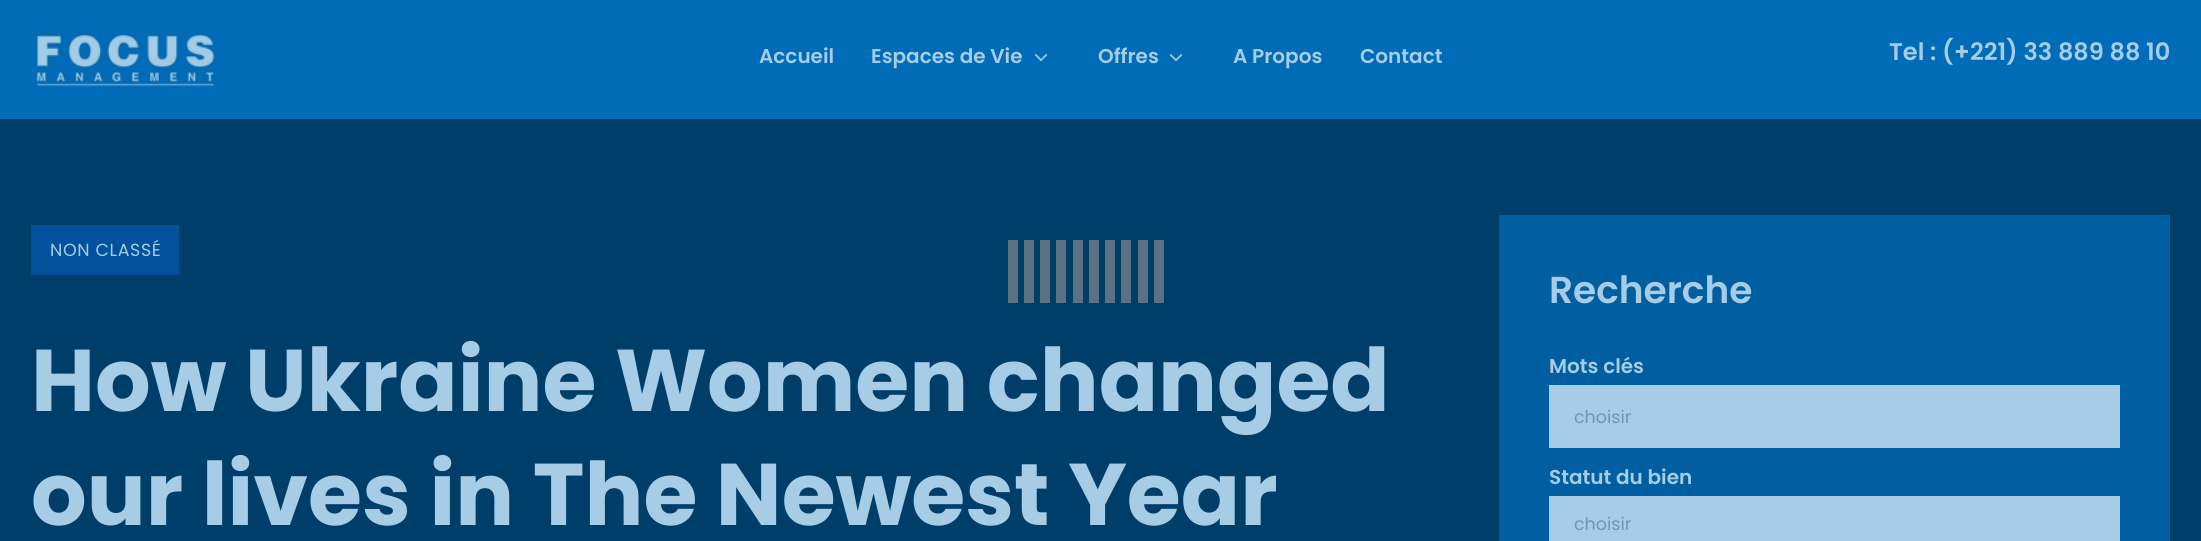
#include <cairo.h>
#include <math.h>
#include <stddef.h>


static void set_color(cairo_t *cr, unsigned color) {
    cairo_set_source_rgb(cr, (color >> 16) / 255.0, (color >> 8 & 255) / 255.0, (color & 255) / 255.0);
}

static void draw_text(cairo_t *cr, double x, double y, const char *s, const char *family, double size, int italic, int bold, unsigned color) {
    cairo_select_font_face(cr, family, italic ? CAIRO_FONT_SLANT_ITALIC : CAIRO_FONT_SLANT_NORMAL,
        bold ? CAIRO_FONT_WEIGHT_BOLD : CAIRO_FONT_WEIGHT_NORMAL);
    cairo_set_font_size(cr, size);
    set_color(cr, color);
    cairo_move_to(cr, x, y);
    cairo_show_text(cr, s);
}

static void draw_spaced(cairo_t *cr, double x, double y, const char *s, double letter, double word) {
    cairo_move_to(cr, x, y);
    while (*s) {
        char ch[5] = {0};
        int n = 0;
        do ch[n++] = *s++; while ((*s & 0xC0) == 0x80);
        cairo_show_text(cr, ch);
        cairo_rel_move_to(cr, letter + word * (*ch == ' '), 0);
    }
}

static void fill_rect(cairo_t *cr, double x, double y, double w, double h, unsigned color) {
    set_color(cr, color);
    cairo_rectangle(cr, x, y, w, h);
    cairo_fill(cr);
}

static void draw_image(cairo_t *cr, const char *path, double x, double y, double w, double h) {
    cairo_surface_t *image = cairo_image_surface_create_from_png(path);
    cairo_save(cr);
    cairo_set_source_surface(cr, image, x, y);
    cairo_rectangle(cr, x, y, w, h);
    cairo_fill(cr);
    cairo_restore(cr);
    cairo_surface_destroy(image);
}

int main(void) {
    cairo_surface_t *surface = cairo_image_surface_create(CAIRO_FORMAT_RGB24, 2201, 541);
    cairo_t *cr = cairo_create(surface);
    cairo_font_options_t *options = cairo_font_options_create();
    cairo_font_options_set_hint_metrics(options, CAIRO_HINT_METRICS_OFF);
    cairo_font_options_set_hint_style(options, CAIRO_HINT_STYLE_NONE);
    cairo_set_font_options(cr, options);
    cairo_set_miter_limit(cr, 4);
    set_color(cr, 0x003E6A);
    cairo_paint(cr);
    fill_rect(cr, 0, 0, 2201, 119, 0x006CB8);
    draw_image(cr, "assets/img1.png", 31, 25, 188, 67);
    draw_text(cr, 759, 63, "Accueil", "Poppins SemiBold", 20, 0, 0, 0xA6CCE6);
    draw_text(cr, 871, 63, "Espaces de Vie", "Poppins SemiBold", 20, 0, 0, 0xA6CCE6);
    draw_image(cr, "assets/img2.png", 1034, 54, 14, 8);
    draw_text(cr, 1098, 63, "Offres", "Poppins SemiBold", 20, 0, 0, 0xA6CCE6);
    draw_image(cr, "assets/img2.png", 1169, 54, 14, 8);
    draw_text(cr, 1233, 63, "A Propos", "Poppins SemiBold", 20, 0, 0, 0xA6CCE6);
    draw_text(cr, 1360, 63, "Contact", "Poppins SemiBold", 20, 0, 0, 0xA6CCE6);
    draw_text(cr, 1889, 60, "Tel : (+221) 33 889 88 10", "Poppins SemiBold", 24, 0, 0, 0xA6CCE6);
    fill_rect(cr, 31, 225, 148, 50, 0x01519D);
    cairo_select_font_face(cr, "Poppins", CAIRO_FONT_SLANT_NORMAL, CAIRO_FONT_WEIGHT_NORMAL);
    cairo_set_font_size(cr, 17.5);
    set_color(cr, 0xA6CCE6);
    draw_spaced(cr, 50, 256, "NON CLASSÉ", 0.6, 0);
    draw_text(cr, 31, 411, "How Ukraine Women changed", "Poppins", 87.5, 0, 1, 0xA6CCE6);
    draw_text(cr, 31, 525, "our lives in The Newest Year", "Poppins", 87.5, 0, 1, 0xA6CCE6);
    fill_rect(cr, 1499, 215, 671, 326, 0x005EA1);
    draw_text(cr, 1549, 303, "Recherche", "Poppins SemiBold", 37.5, 0, 0, 0xA6CCE6);
    draw_text(cr, 1549, 373, "Mots clés", "Poppins SemiBold", 20, 0, 0, 0xA6CCE6);
    fill_rect(cr, 1549, 385, 571, 63, 0xA6CCE6);
    draw_text(cr, 1574, 423, "choisir", "Poppins", 17.5, 0, 0, 0x6A98B7);
    draw_text(cr, 1549, 484, "Statut du bien", "Poppins SemiBold", 20, 0, 0, 0xA6CCE6);
    fill_rect(cr, 1549, 496, 571, 45, 0xA6CCE6);
    draw_text(cr, 1574, 530, "choisir", "Poppins", 17.5, 0, 0, 0x6A98B7);
    fill_rect(cr, 1008, 240, 10, 63, 0x5A7284);
    fill_rect(cr, 1024, 240, 10, 63, 0x5A7284);
    fill_rect(cr, 1040, 240, 10, 63, 0x5A7284);
    fill_rect(cr, 1056, 240, 10, 63, 0x5A7284);
    fill_rect(cr, 1073, 240, 10, 63, 0x5A7284);
    fill_rect(cr, 1089, 240, 10, 63, 0x5A7284);
    fill_rect(cr, 1105, 240, 10, 63, 0x5A7284);
    fill_rect(cr, 1121, 240, 10, 63, 0x5A7284);
    fill_rect(cr, 1138, 240, 10, 63, 0x5A7284);
    fill_rect(cr, 1154, 240, 10, 63, 0x5A7284);
    cairo_surface_write_to_png(surface, "output.png");
    cairo_font_options_destroy(options);
    cairo_destroy(cr);
    cairo_surface_destroy(surface);
    return 0;
}
